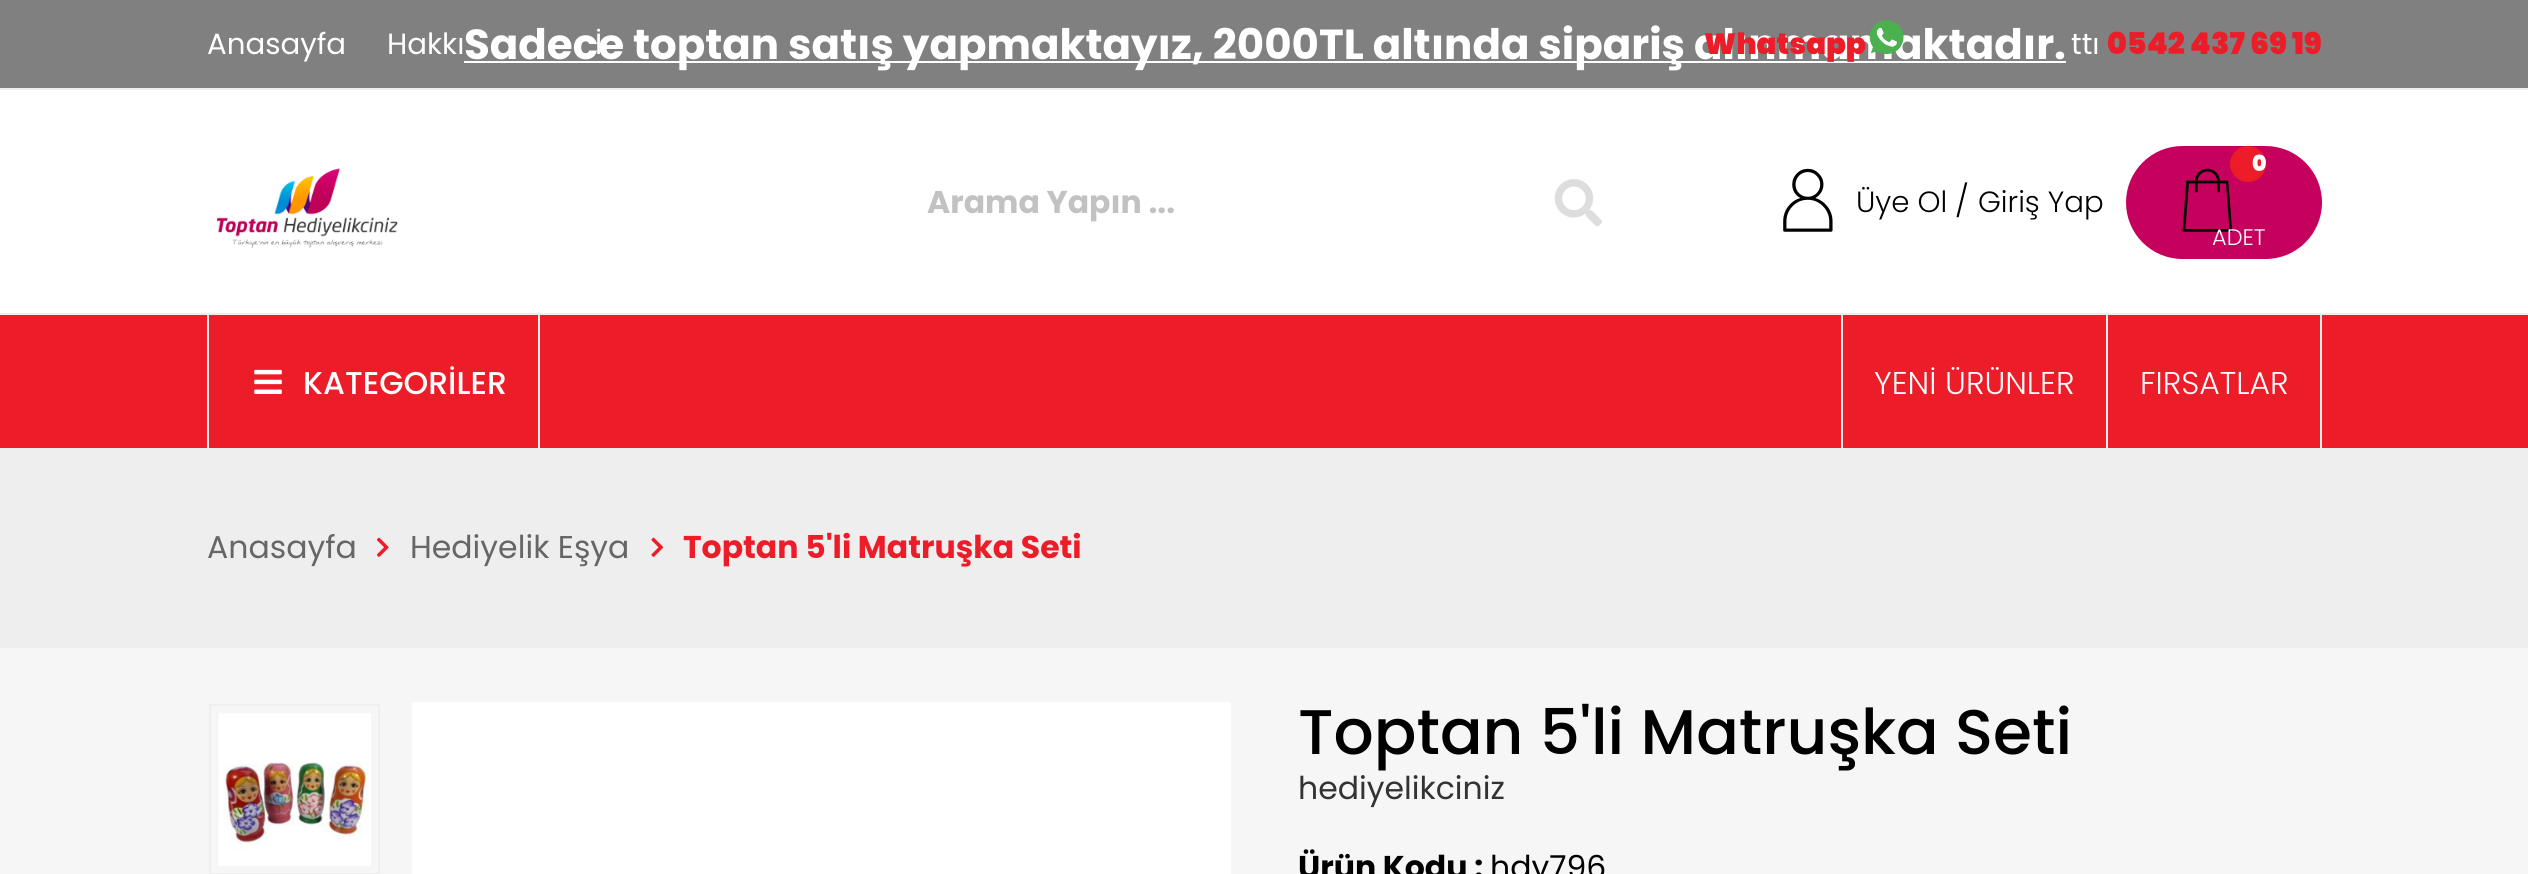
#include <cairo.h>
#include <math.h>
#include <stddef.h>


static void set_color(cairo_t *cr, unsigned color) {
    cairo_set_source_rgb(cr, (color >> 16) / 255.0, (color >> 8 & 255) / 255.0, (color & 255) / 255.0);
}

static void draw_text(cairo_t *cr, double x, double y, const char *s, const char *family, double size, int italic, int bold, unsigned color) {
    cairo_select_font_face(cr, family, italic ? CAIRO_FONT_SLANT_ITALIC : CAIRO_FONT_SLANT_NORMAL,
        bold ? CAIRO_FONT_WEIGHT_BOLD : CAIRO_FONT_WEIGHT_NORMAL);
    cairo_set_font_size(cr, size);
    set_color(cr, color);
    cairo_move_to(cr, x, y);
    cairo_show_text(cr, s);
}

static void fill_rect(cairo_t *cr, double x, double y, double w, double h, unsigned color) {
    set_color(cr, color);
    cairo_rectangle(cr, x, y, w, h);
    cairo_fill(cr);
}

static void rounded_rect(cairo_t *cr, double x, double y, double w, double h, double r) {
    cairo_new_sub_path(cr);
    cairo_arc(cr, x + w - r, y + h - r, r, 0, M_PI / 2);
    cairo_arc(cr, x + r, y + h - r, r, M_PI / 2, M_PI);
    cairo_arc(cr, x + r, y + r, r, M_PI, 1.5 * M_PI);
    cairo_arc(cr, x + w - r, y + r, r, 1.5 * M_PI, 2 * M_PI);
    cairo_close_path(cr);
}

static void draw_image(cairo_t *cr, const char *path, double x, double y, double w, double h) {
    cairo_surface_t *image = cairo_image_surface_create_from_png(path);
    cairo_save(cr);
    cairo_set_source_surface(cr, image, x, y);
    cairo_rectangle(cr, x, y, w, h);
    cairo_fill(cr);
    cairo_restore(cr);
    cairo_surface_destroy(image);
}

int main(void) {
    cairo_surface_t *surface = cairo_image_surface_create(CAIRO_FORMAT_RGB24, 2528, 874);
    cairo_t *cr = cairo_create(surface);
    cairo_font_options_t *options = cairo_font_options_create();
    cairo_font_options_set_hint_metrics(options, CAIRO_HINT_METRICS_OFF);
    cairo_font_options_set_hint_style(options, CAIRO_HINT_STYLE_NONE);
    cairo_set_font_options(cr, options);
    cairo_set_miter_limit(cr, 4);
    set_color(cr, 0xF6F6F6);
    cairo_paint(cr);
    fill_rect(cr, 0, 0, 2528, 88, 0x808080);
    fill_rect(cr, 0, 88, 2528, 2, 0xEEEEEE);
    draw_text(cr, 207, 54, "Anasayfa", "Poppins", 29.25, 0, 0, 0xFFFFFF);
    draw_text(cr, 387, 54, "Hakkı", "Poppins", 29.25, 0, 0, 0xFFFFFF);
    fill_rect(cr, 464, 61, 1602, 2, 0xFFFFFF);
    draw_text(cr, 464, 59, "Sadece toptan satış yapmaktayız, 2000TL altında sipariş alınmamaktadır.", "Poppins", 42, 0, 1, 0xFFFFFF);
    draw_text(cr, 595, 54, "İ", "Poppins", 29.25, 0, 0, 0xFFFFFF);
    draw_text(cr, 1704, 54, "Whatsapp", "Poppins Black", 29.25, 0, 0, 0xEC1C29);
    draw_image(cr, "assets/img1.png", 1869, 20, 35, 34);
    draw_text(cr, 2071, 54, "ttı", "Poppins", 29.25, 0, 0, 0xFFFFFF);
    draw_text(cr, 2107, 54, "0542 437 69 19", "Poppins Black", 30, 0, 0, 0xEC1C29);
    fill_rect(cr, 0, 90, 2528, 223, 0xFFFFFF);
    fill_rect(cr, 0, 313, 2528, 2, 0xEEEEEE);
    draw_image(cr, "assets/img2.png", 216, 168, 182, 80);
    draw_text(cr, 927, 213, "Arama Yapın ...", "Poppins", 31.5, 0, 1, 0xC2C2C2);
    draw_image(cr, "assets/img3.png", 1554, 179, 48, 48);
    draw_image(cr, "assets/img4.png", 1783, 168, 50, 64);
    draw_text(cr, 1856, 212, "Üye Ol", "Poppins Light", 29.25, 0, 0, 0x000000);
    draw_text(cr, 1955, 212, "/", "Poppins Light", 31.5, 0, 0, 0x000000);
    draw_text(cr, 1978, 212, "Giriş Yap", "Poppins Light", 29.25, 0, 0, 0x000000);
    set_color(cr, 0xC6005D);
    rounded_rect(cr, 2126, 146, 196, 113, 56.5);
    cairo_fill(cr);
    draw_image(cr, "assets/img5.png", 2182, 168, 51, 64);
    set_color(cr, 0xEC1C29);
    cairo_arc(cr, 2248, 164, 18, 0, 2 * M_PI);
    cairo_fill(cr);
    draw_text(cr, 2252, 171, "0", "Poppins Black", 22, 0, 0, 0xFFFFFF);
    draw_text(cr, 2212, 245, "ADET", "Poppins Light", 22.5, 0, 0, 0xFFFFFF);
    fill_rect(cr, 0, 315, 2528, 133, 0xEC1C29);
    fill_rect(cr, 0, 448, 2528, 200, 0xEEEEEE);
    fill_rect(cr, 538, 315, 2, 135, 0xEEEEEE);
    fill_rect(cr, 207, 315, 2, 135, 0xEEEEEE);
    draw_image(cr, "assets/img6.png", 254, 369, 28, 25);
    draw_text(cr, 303, 394, "KATEGORİLER", "Poppins Medium", 31.5, 0, 0, 0xFFFFFF);
    fill_rect(cr, 1841, 315, 2, 135, 0xEEEEEE);
    draw_text(cr, 1874, 394, "YENİ ÜRÜNLER", "Poppins Light", 31.5, 0, 0, 0xFFFFFF);
    fill_rect(cr, 2320, 315, 2, 135, 0xEEEEEE);
    fill_rect(cr, 2106, 315, 2, 135, 0xEEEEEE);
    draw_text(cr, 2140, 394, "FIRSATLAR", "Poppins Light", 31.5, 0, 0, 0xFFFFFF);
    draw_text(cr, 207, 558, "Anasayfa", "Poppins", 31.5, 0, 0, 0x666666);
    draw_image(cr, "assets/img7.png", 377, 537, 12, 20);
    draw_text(cr, 410, 558, "Hediyelik Eşya", "Poppins", 31.5, 0, 0, 0x666666);
    draw_image(cr, "assets/img8.png", 651, 537, 13, 20);
    draw_text(cr, 683, 558, "Toptan 5'li Matruşka Seti", "Poppins", 31.5, 0, 1, 0xEC1C29);
    cairo_rectangle(cr, 210, 705, 169, 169);
    set_color(cr, 0xEEEEEE);
    cairo_stroke(cr);
    draw_image(cr, "assets/img9.png", 218, 713, 153, 153);
    fill_rect(cr, 412, 702, 819, 172, 0xFFFFFF);
    draw_text(cr, 1298, 754, "Toptan 5'li Matruşka Seti", "Poppins Medium", 63, 0, 0, 0x000000);
    draw_text(cr, 1298, 799, "hediyelikciniz", "Poppins", 31.5, 0, 0, 0x333333);
    draw_text(cr, 1298, 878, "Ürün Kodu :", "Poppins", 31.5, 0, 1, 0x000000);
    draw_text(cr, 1490, 878, "hdy796", "Poppins", 31.5, 0, 0, 0x000000);
    cairo_surface_write_to_png(surface, "output.png");
    cairo_font_options_destroy(options);
    cairo_destroy(cr);
    cairo_surface_destroy(surface);
    return 0;
}
